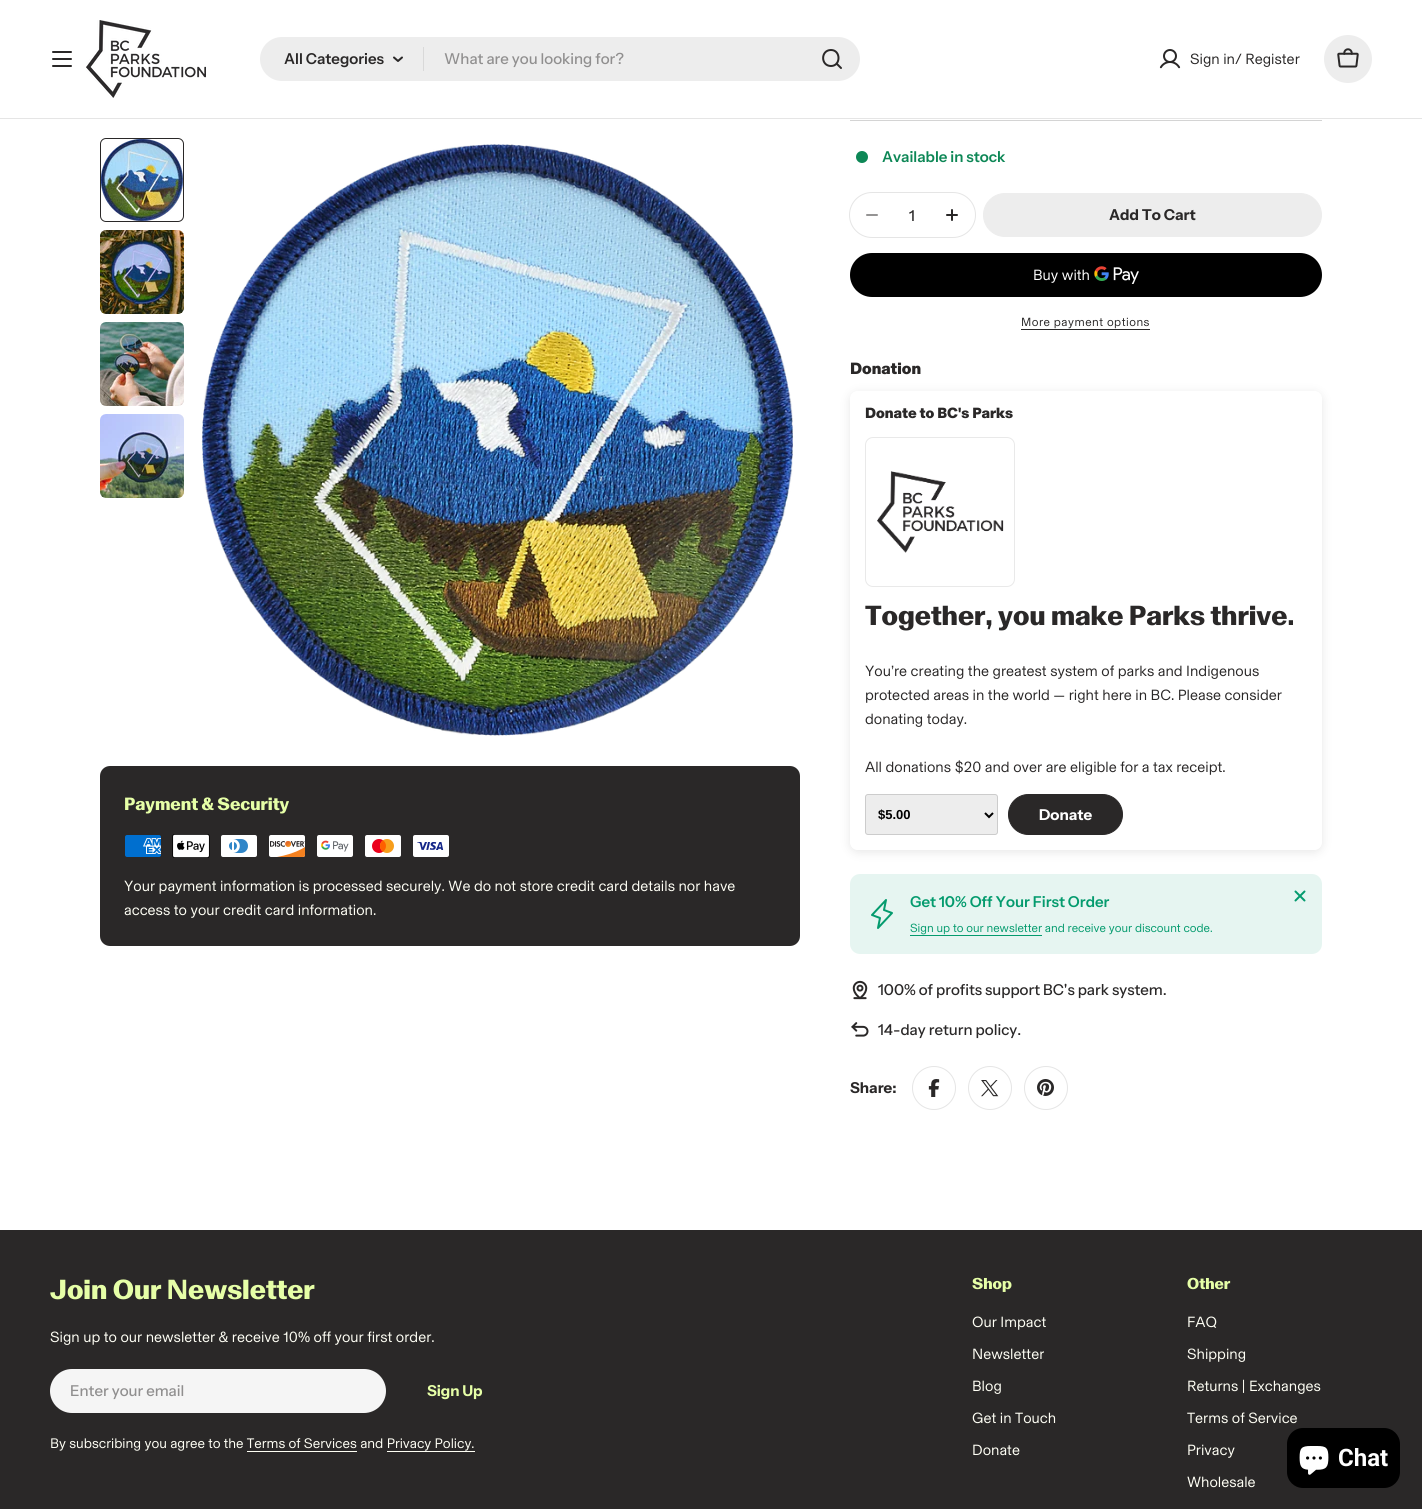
#include <cairo.h>
#include <math.h>
#include <stddef.h>


static void set_color(cairo_t *cr, unsigned color) {
    cairo_set_source_rgb(cr, (color >> 16) / 255.0, (color >> 8 & 255) / 255.0, (color & 255) / 255.0);
}

static void draw_text(cairo_t *cr, double x, double y, const char *s, const char *family, double size, int italic, int bold, unsigned color) {
    cairo_select_font_face(cr, family, italic ? CAIRO_FONT_SLANT_ITALIC : CAIRO_FONT_SLANT_NORMAL,
        bold ? CAIRO_FONT_WEIGHT_BOLD : CAIRO_FONT_WEIGHT_NORMAL);
    cairo_set_font_size(cr, size);
    set_color(cr, color);
    cairo_move_to(cr, x, y);
    cairo_show_text(cr, s);
}

static void draw_spaced(cairo_t *cr, double x, double y, const char *s, double letter, double word) {
    cairo_move_to(cr, x, y);
    while (*s) {
        char ch[5] = {0};
        int n = 0;
        do ch[n++] = *s++; while ((*s & 0xC0) == 0x80);
        cairo_show_text(cr, ch);
        cairo_rel_move_to(cr, letter + word * (*ch == ' '), 0);
    }
}

static void fill_rect(cairo_t *cr, double x, double y, double w, double h, unsigned color) {
    set_color(cr, color);
    cairo_rectangle(cr, x, y, w, h);
    cairo_fill(cr);
}

static void rounded_rect(cairo_t *cr, double x, double y, double w, double h, double r) {
    cairo_new_sub_path(cr);
    cairo_arc(cr, x + w - r, y + h - r, r, 0, M_PI / 2);
    cairo_arc(cr, x + r, y + h - r, r, M_PI / 2, M_PI);
    cairo_arc(cr, x + r, y + r, r, M_PI, 1.5 * M_PI);
    cairo_arc(cr, x + w - r, y + r, r, 1.5 * M_PI, 2 * M_PI);
    cairo_close_path(cr);
}

static void draw_shadow(cairo_t *cr, double x, double y, double w, double h, double r, double blur, double alpha) {
    cairo_push_group_with_content(cr, CAIRO_CONTENT_ALPHA);
    cairo_set_operator(cr, CAIRO_OPERATOR_SOURCE);
    for (int i = 15; i >= -15 && fmin(w, h) + blur * i / 3 > 0; i -= 2) {
        double e = blur * i / 6;
        cairo_set_source_rgba(cr, 0, 0, 0, alpha * erfc((i - 1) / 8.5) / 2);
        rounded_rect(cr, x - e, y - e, w + 2 * e, h + 2 * e, fmax(0, fmin(r + e + blur * .6, fmin(w, h) / 2 + e)));
        cairo_fill(cr);
    }
    cairo_pattern_t *soft = cairo_pop_group(cr);
    cairo_mask(cr, soft);
    cairo_pattern_destroy(soft);
}

static void draw_image(cairo_t *cr, const char *path, double x, double y, double w, double h) {
    cairo_surface_t *image = cairo_image_surface_create_from_png(path);
    cairo_save(cr);
    cairo_set_source_surface(cr, image, x, y);
    cairo_rectangle(cr, x, y, w, h);
    cairo_fill(cr);
    cairo_restore(cr);
    cairo_surface_destroy(image);
}

int main(void) {
    cairo_surface_t *surface = cairo_image_surface_create(CAIRO_FORMAT_RGB24, 1422, 1509);
    cairo_t *cr = cairo_create(surface);
    cairo_font_options_t *options = cairo_font_options_create();
    cairo_font_options_set_hint_metrics(options, CAIRO_HINT_METRICS_OFF);
    cairo_font_options_set_hint_style(options, CAIRO_HINT_STYLE_NONE);
    cairo_set_font_options(cr, options);
    cairo_set_miter_limit(cr, 4);
    set_color(cr, 0xFFFFFF);
    cairo_paint(cr);
    set_color(cr, 0x2A2828);
    rounded_rect(cr, 52, 58, 20, 2, 1);
    cairo_fill(cr);
    rounded_rect(cr, 52, 51, 20, 2, 1);
    cairo_fill(cr);
    rounded_rect(cr, 52, 65, 20, 2, 1);
    cairo_fill(cr);
    draw_image(cr, "assets/img1.png", 86, 20, 120, 78);
    set_color(cr, 0xEDEDED);
    rounded_rect(cr, 260, 37, 600, 44, 22);
    cairo_fill(cr);
    draw_text(cr, 284, 64, "All Categories", "Instrument Sans SemiBold", 15, 0, 0, 0x2A2828);
    cairo_new_path(cr);
    cairo_move_to(cr, 402, 57.5);
    cairo_line_to(cr, 398, 61);
    cairo_line_to(cr, 394, 57.5);
    cairo_set_line_cap(cr, CAIRO_LINE_CAP_ROUND);
    cairo_set_line_join(cr, CAIRO_LINE_JOIN_ROUND);
    cairo_stroke(cr);
    fill_rect(cr, 423, 47, 1, 24, 0xD9D9D9);
    draw_text(cr, 444, 64, "What are you looking for?", "Instrument Sans Medium", 15, 0, 0, 0x908F8F);
    cairo_new_path(cr);
    cairo_move_to(cr, 831, 66);
    cairo_curve_to(cr, 841, 66, 841, 50, 831, 50);
    cairo_curve_to(cr, 820.5, 50, 820.5, 66, 831, 66);
    cairo_close_path(cr);
    cairo_move_to(cr, 836.5, 63.5);
    cairo_line_to(cr, 841, 68);
    set_color(cr, 0x2A2828);
    cairo_stroke(cr);
    draw_image(cr, "assets/img2.png", 1159, 49, 22, 20);
    draw_text(cr, 1190, 64, "Sign in/ Register", "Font", 15, 0, 0, 0x2A2828);
    set_color(cr, 0xEDEDED);
    cairo_new_path(cr);
    cairo_arc(cr, 1348, 59, 24, 0, 2 * M_PI);
    cairo_fill(cr);
    draw_image(cr, "assets/img3.png", 1337, 48, 22, 20);
    fill_rect(cr, 0, 118, 1422, 1, 0xE5E5E5);
    draw_image(cr, "assets/img4.png", 101, 139, 82, 82);
    rounded_rect(cr, 100.5, 138.5, 83, 83, 5.5);
    set_color(cr, 0x2A2828);
    cairo_set_line_width(cr, 1);
    cairo_set_line_cap(cr, CAIRO_LINE_CAP_BUTT);
    cairo_set_line_join(cr, CAIRO_LINE_JOIN_MITER);
    cairo_stroke(cr);
    draw_image(cr, "assets/img5.png", 100, 230, 84, 84);
    draw_image(cr, "assets/img6.png", 100, 322, 84, 84);
    draw_image(cr, "assets/img7.png", 100, 414, 84, 84);
    draw_image(cr, "assets/img8.png", 201, 144, 592, 592);
    rounded_rect(cr, 100, 766, 700, 180, 10);
    cairo_fill(cr);
    draw_text(cr, 124, 810, "Payment & Security", "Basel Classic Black", 18, 0, 0, 0xE6FFA7);
    draw_image(cr, "assets/img9.png", 125, 835, 36, 22);
    draw_image(cr, "assets/img10.png", 172, 834, 38, 24);
    draw_image(cr, "assets/img11.png", 221, 835, 36, 22);
    draw_image(cr, "assets/img12.png", 269, 835, 36, 22);
    draw_image(cr, "assets/img13.png", 317, 835, 36, 22);
    draw_image(cr, "assets/img14.png", 365, 835, 36, 22);
    draw_image(cr, "assets/img15.png", 413, 835, 36, 22);
    draw_text(cr, 124, 891, "Your payment information is processed securely. We do not store credit card details nor have", "Font", 15, 0, 0, 0xFFFFF5);
    draw_text(cr, 124, 915, "access to your credit card information.", "Font", 15, 0, 0, 0xFFFFF5);
    fill_rect(cr, 850, 120, 472, 1, 0xD4D4D4);
    set_color(cr, 0x0D8756);
    cairo_new_path(cr);
    cairo_arc(cr, 862, 157, 6, 0, 2 * M_PI);
    cairo_fill(cr);
    draw_text(cr, 882, 162, "Available in stock", "Instrument Sans SemiBold", 15, 0, 0, 0x0D8756);
    rounded_rect(cr, 849.5, 192.5, 126, 45, 22.5);
    set_color(cr, 0xE5E5E5);
    cairo_stroke(cr);
    cairo_new_path(cr);
    cairo_move_to(cr, 867, 215);
    cairo_line_to(cr, 877, 215);
    set_color(cr, 0x959494);
    cairo_set_line_width(cr, 2);
    cairo_set_line_cap(cr, CAIRO_LINE_CAP_ROUND);
    cairo_set_line_join(cr, CAIRO_LINE_JOIN_ROUND);
    cairo_stroke(cr);
    draw_text(cr, 909, 221, "1", "Instrument Sans Medium", 15, 0, 0, 0x2A2828);
    cairo_new_path(cr);
    cairo_move_to(cr, 947, 215);
    cairo_line_to(cr, 957, 215);
    cairo_move_to(cr, 952, 210);
    cairo_line_to(cr, 952, 220);
    cairo_stroke(cr);
    set_color(cr, 0xEDEDED);
    rounded_rect(cr, 983.5, 193.5, 338, 43, 21.5);
    cairo_fill_preserve(cr);
    cairo_set_line_width(cr, 1);
    cairo_set_line_cap(cr, CAIRO_LINE_CAP_BUTT);
    cairo_set_line_join(cr, CAIRO_LINE_JOIN_MITER);
    cairo_stroke(cr);
    draw_text(cr, 1109, 220, "Add To Cart", "Instrument Sans", 15, 0, 1, 0x2A2828);
    set_color(cr, 0x000000);
    rounded_rect(cr, 850, 253, 472, 44, 22);
    cairo_fill(cr);
    draw_text(cr, 1033, 280, "Buy with", "Font", 15, 0, 0, 0xFFFFFF);
    draw_image(cr, "assets/img16.png", 1094, 266, 45, 18);
    cairo_set_font_size(cr, 12);
    set_color(cr, 0x2A2828);
    draw_spaced(cr, 1021, 326, "More payment options", 0.5, 0);
    fill_rect(cr, 1021, 329, 129, 1, 0x2A2828);
    draw_text(cr, 850, 374, "Donation", "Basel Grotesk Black", 16.5, 0, 0, 0x2A2828);
    cairo_save(cr);
    cairo_set_fill_rule(cr, CAIRO_FILL_RULE_EVEN_ODD);
    cairo_new_path(cr);
    cairo_move_to(cr, 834, 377);
    cairo_line_to(cr, 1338, 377);
    cairo_line_to(cr, 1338, 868);
    cairo_line_to(cr, 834, 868);
    cairo_close_path(cr);
    cairo_move_to(cr, 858, 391);
    cairo_line_to(cr, 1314, 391);
    cairo_curve_to(cr, 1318.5, 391, 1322, 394.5, 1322, 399);
    cairo_line_to(cr, 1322, 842);
    cairo_curve_to(cr, 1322, 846.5, 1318.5, 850, 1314, 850);
    cairo_line_to(cr, 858, 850);
    cairo_curve_to(cr, 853.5, 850, 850, 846.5, 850, 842);
    cairo_line_to(cr, 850, 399);
    cairo_curve_to(cr, 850, 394.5, 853.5, 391, 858, 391);
    cairo_close_path(cr);
    cairo_clip(cr);
    set_color(cr, 0xCDCDCD);
    draw_shadow(cr, 850, 393, 472, 459, 8, 5, 0.49);
    cairo_restore(cr);
    draw_text(cr, 865, 418, "Donate to BC's Parks", "Basel Grotesk Black", 15, 0, 0, 0x2A2828);
    rounded_rect(cr, 865.5, 437.5, 149, 149, 7.5);
    set_color(cr, 0xE9E9E9);
    cairo_stroke(cr);
    draw_image(cr, "assets/img17.png", 877, 471, 127, 82);
    draw_text(cr, 865, 625, "Together, you make Parks thrive.", "Basel Classic Black", 28, 0, 0, 0x2A2828);
    draw_text(cr, 865, 676, "You’re creating the greatest system of parks and Indigenous", "Font", 15, 0, 0, 0x2A2828);
    draw_text(cr, 865, 700, "protected areas in the world — right here in BC. Please consider", "Font", 15, 0, 0, 0x2A2828);
    draw_text(cr, 865, 724, "donating today.", "Font", 15, 0, 0, 0x2A2828);
    draw_text(cr, 865, 772, "All donations $20 and over are eligible for a tax receipt.", "Font", 15, 0, 0, 0x2A2828);
    set_color(cr, 0xEDEDED);
    rounded_rect(cr, 865.5, 794.5, 132, 40, 2.5);
    cairo_fill_preserve(cr);
    set_color(cr, 0xCCCCCC);
    cairo_stroke(cr);
    cairo_new_path(cr);
    cairo_move_to(cr, 985, 813);
    cairo_line_to(cr, 989, 817);
    cairo_line_to(cr, 993, 813);
    set_color(cr, 0x000000);
    cairo_set_line_width(cr, 2);
    cairo_stroke(cr);
    draw_text(cr, 878, 819, "$5.00", "Liberation Sans", 13, 0, 1, 0x000000);
    set_color(cr, 0x2A2828);
    rounded_rect(cr, 1008.5, 794.5, 114, 40, 20);
    cairo_fill_preserve(cr);
    cairo_set_line_width(cr, 1);
    cairo_stroke(cr);
    draw_text(cr, 1039, 820, "Donate", "Instrument Sans", 15, 0, 1, 0xFFFFFF);
    set_color(cr, 0xE6F5F1);
    rounded_rect(cr, 850, 874, 472, 80, 10);
    cairo_fill(cr);
    cairo_new_path(cr);
    cairo_move_to(cr, 886, 900);
    cairo_line_to(cr, 884, 910);
    cairo_line_to(cr, 892, 913);
    cairo_line_to(cr, 878, 928);
    cairo_line_to(cr, 880, 918);
    cairo_line_to(cr, 872, 915);
    cairo_close_path(cr);
    set_color(cr, 0x049B6E);
    cairo_set_line_width(cr, 2);
    cairo_set_line_cap(cr, CAIRO_LINE_CAP_ROUND);
    cairo_set_line_join(cr, CAIRO_LINE_JOIN_ROUND);
    cairo_stroke(cr);
    draw_text(cr, 910, 907, "Get 10% Off Your First Order", "Instrument Sans SemiBold", 15, 0, 0, 0x049B6E);
    draw_text(cr, 910, 932, "Sign up to our newsletter and receive your discount code.", "Font", 12, 0, 0, 0x049B6E);
    fill_rect(cr, 910, 935, 132, 1, 0x049B6E);
    cairo_new_path(cr);
    cairo_move_to(cr, 1304.5, 891.5);
    cairo_line_to(cr, 1295.5, 900.5);
    cairo_move_to(cr, 1304.5, 900.5);
    cairo_line_to(cr, 1295.5, 891.5);
    cairo_stroke(cr);
    draw_image(cr, "assets/img18.png", 852, 980, 16, 20);
    draw_text(cr, 878, 995, "100% of profits support BC's park system.", "Instrument Sans Medium", 15, 0, 0, 0x2A2828);
    draw_image(cr, "assets/img19.png", 851, 1022, 18, 15);
    draw_text(cr, 878, 1035, "14-day return policy.", "Instrument Sans Medium", 15, 0, 0, 0x2A2828);
    draw_text(cr, 850, 1093, "Share:", "Instrument Sans", 15, 0, 1, 0x2A2828);
    cairo_new_path(cr);
    cairo_arc(cr, 934, 1088, 21.5, 0, 2 * M_PI);
    set_color(cr, 0xE5E5E5);
    cairo_set_line_width(cr, 1);
    cairo_set_line_cap(cr, CAIRO_LINE_CAP_BUTT);
    cairo_set_line_join(cr, CAIRO_LINE_JOIN_MITER);
    cairo_stroke(cr);
    draw_image(cr, "assets/img20.png", 928, 1079, 12, 18);
    cairo_arc(cr, 990, 1088, 21.5, 0, 2 * M_PI);
    cairo_stroke(cr);
    draw_image(cr, "assets/img21.png", 981, 1080, 18, 17);
    cairo_arc(cr, 1046, 1088, 21.5, 0, 2 * M_PI);
    cairo_stroke(cr);
    draw_image(cr, "assets/img22.png", 1037, 1079, 17, 17);
    fill_rect(cr, 0, 1230, 1422, 279, 0x2A2828);
    draw_text(cr, 50, 1299, "Join Our Newsletter", "Basel Classic Black", 28, 0, 0, 0xE6FFA7);
    draw_text(cr, 50, 1342, "Sign up to our newsletter & receive 10% off your first order.", "Font", 15, 0, 0, 0xFFFFF5);
    set_color(cr, 0xF5F5F5);
    rounded_rect(cr, 50, 1369, 336, 44, 22);
    cairo_fill(cr);
    draw_text(cr, 70, 1396, "Enter your email", "Instrument Sans Medium", 15, 0, 0, 0x908F8F);
    draw_text(cr, 427, 1396, "Sign Up", "Instrument Sans", 15, 0, 1, 0xE6FFA7);
    draw_text(cr, 50, 1448, "By subscribing you agree to the Terms of Services and Privacy Policy.", "Font", 14, 0, 0, 0xFFFFF5);
    fill_rect(cr, 247, 1451, 110, 1, 0xFFFFF5);
    fill_rect(cr, 387, 1451, 88, 1, 0xFFFFF5);
    draw_text(cr, 972, 1289, "Shop", "Basel Classic Black", 16, 0, 0, 0xE6FFA7);
    draw_text(cr, 972, 1327, "Our Impact", "Font", 15, 0, 0, 0xFFFFF5);
    draw_text(cr, 972, 1359, "Newsletter", "Font", 15, 0, 0, 0xFFFFF5);
    draw_text(cr, 972, 1391, "Blog", "Font", 15, 0, 0, 0xFFFFF5);
    draw_text(cr, 972, 1423, "Get in Touch", "Font", 15, 0, 0, 0xFFFFF5);
    draw_text(cr, 972, 1455, "Donate", "Font", 15, 0, 0, 0xFFFFF5);
    draw_text(cr, 1187, 1289, "Other", "Basel Classic Black", 16, 0, 0, 0xE6FFA7);
    draw_text(cr, 1187, 1327, "FAQ", "Font", 15, 0, 0, 0xFFFFF5);
    draw_text(cr, 1187, 1359, "Shipping", "Font", 15, 0, 0, 0xFFFFF5);
    draw_text(cr, 1187, 1391, "Returns | Exchanges", "Font", 15, 0, 0, 0xFFFFF5);
    draw_text(cr, 1187, 1423, "Terms of Service", "Font", 15, 0, 0, 0xFFFFF5);
    draw_text(cr, 1187, 1455, "Privacy", "Font", 15, 0, 0, 0xFFFFF5);
    draw_text(cr, 1187, 1487, "Wholesale", "Font", 15, 0, 0, 0xFFFFF5);
    set_color(cr, 0x000000);
    rounded_rect(cr, 1287, 1428, 113, 60, 16);
    cairo_fill(cr);
    draw_image(cr, "assets/img23.png", 1299, 1446, 30, 29);
    draw_text(cr, 1338, 1466, "Chat", "Roboto", 24, 0, 1, 0xFFFFFF);
    cairo_surface_write_to_png(surface, "output.png");
    cairo_font_options_destroy(options);
    cairo_destroy(cr);
    cairo_surface_destroy(surface);
    return 0;
}
